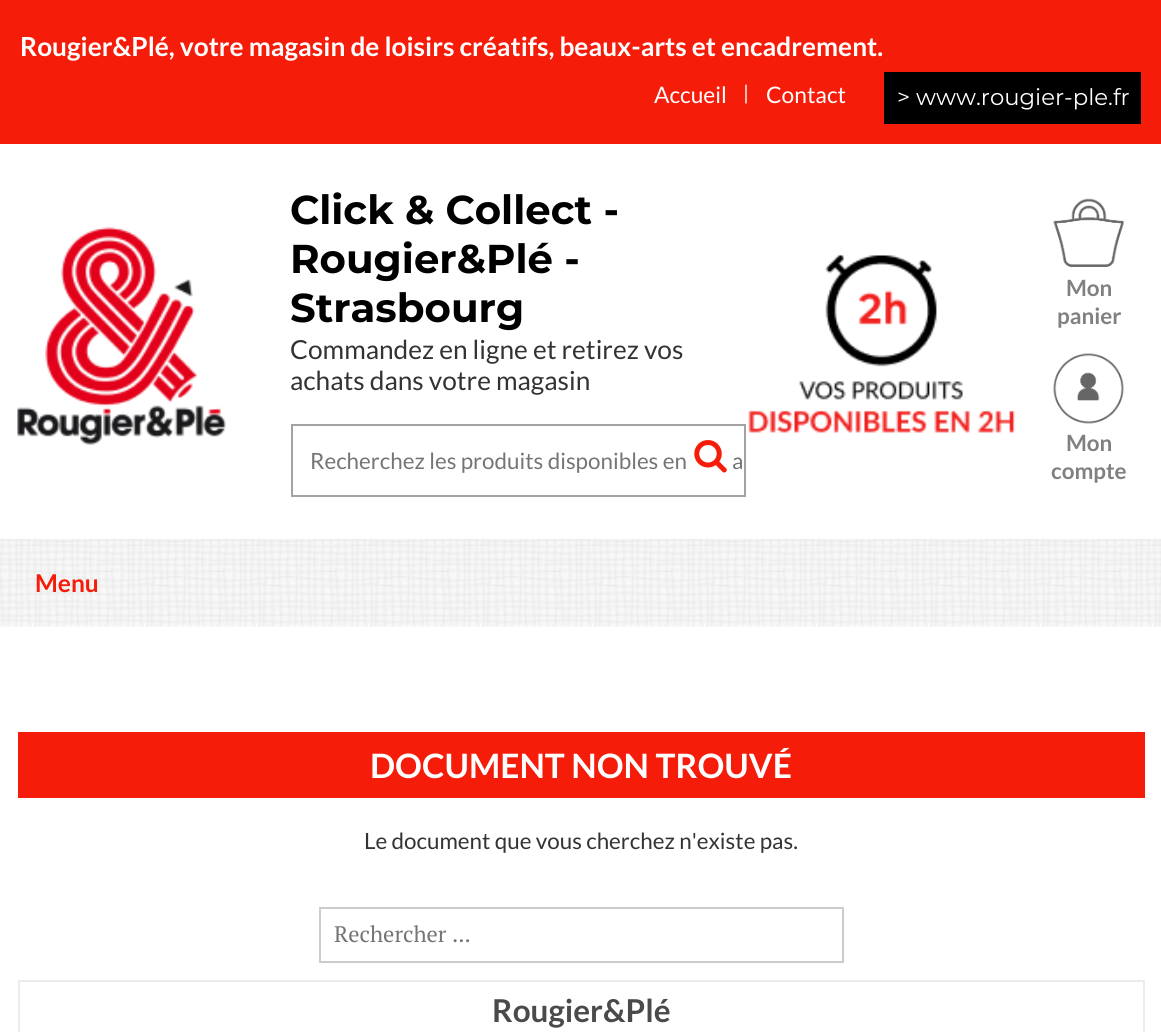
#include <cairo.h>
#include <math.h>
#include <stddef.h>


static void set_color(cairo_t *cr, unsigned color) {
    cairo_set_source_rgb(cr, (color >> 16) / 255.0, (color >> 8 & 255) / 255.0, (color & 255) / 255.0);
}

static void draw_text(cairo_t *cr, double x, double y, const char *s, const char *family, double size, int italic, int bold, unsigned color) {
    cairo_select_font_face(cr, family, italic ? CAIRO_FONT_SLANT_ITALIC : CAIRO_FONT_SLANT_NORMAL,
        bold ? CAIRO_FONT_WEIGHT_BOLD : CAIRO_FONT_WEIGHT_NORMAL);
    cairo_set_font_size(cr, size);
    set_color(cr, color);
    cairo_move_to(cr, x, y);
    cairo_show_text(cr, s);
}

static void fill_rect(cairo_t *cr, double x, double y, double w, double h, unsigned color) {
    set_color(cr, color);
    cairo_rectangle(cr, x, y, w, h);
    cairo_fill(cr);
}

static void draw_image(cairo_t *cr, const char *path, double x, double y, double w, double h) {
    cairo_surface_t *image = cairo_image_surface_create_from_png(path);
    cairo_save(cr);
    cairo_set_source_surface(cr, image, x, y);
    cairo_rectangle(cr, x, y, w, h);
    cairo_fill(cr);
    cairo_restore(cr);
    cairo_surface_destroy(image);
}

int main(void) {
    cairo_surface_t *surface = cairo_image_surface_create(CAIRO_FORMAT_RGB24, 1161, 1032);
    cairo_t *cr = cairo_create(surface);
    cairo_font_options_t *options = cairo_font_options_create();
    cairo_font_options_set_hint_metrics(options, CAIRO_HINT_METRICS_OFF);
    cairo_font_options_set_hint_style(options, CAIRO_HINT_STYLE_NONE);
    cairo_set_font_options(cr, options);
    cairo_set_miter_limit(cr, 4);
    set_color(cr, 0xFFFFFF);
    cairo_paint(cr);
    fill_rect(cr, 0, 0, 1161, 144, 0xF51C09);
    draw_text(cr, 20, 56, "Rougier&Plé, votre magasin de loisirs créatifs, beaux-arts et encadrement.", "Lato", 26.25, 0, 1, 0xFFFFFF);
    draw_text(cr, 654, 103, "Accueil", "Lato", 22.75, 0, 0, 0xFFFFFF);
    draw_text(cr, 743, 100, "|", "Lato", 20, 0, 0, 0xFFFFFF);
    draw_text(cr, 766, 103, "Contact", "Lato", 22.75, 0, 0, 0xFFFFFF);
    fill_rect(cr, 884, 72, 257, 52, 0x000000);
    draw_text(cr, 897, 105, "> www.rougier-ple.fr", "Montserrat", 22.75, 0, 0, 0xFFFFFF);
    draw_image(cr, "assets/img1.png", 17, 227, 209, 218);
    draw_text(cr, 290, 224, "Click & Collect -", "Montserrat", 40.25, 0, 1, 0x000000);
    draw_text(cr, 290, 273, "Rougier&Plé -", "Montserrat", 40.25, 0, 1, 0x000000);
    draw_text(cr, 290, 322, "Strasbourg", "Montserrat", 40.25, 0, 1, 0x000000);
    draw_text(cr, 290, 359, "Commandez en ligne et retirez vos", "Lato", 26.25, 0, 0, 0x333333);
    draw_text(cr, 290, 390, "achats dans votre magasin", "Lato", 26.25, 0, 0, 0x333333);
    cairo_rectangle(cr, 292, 425, 453, 71);
    set_color(cr, 0xA3A3A3);
    cairo_stroke(cr);
    draw_image(cr, "assets/img2.png", 694, 440, 33, 33);
    draw_text(cr, 310, 469, "Recherchez les produits disponibles en", "Lato", 22.4, 0, 0, 0x757575);
    draw_text(cr, 732, 469, "a", "Lato", 22.4, 0, 0, 0x757575);
    draw_image(cr, "assets/img3.png", 748, 254, 268, 179);
    draw_image(cr, "assets/img4.png", 1053, 198, 71, 69);
    draw_text(cr, 1066, 296, "Mon", "Lato", 22.4, 0, 1, 0x808080);
    draw_text(cr, 1057, 324, "panier", "Lato", 22.4, 0, 1, 0x808080);
    draw_image(cr, "assets/img5.png", 1053, 353, 71, 71);
    draw_text(cr, 1066, 451, "Mon", "Lato", 22.4, 0, 1, 0x808080);
    draw_text(cr, 1051, 479, "compte", "Lato", 22.4, 0, 1, 0x808080);
    draw_image(cr, "assets/img6.png", 0, 539, 1161, 88);
    draw_text(cr, 35, 592, "Menu", "Lato", 24.5, 0, 1, 0xF51C09);
    fill_rect(cr, 18, 732, 1127, 66, 0xF51C09);
    draw_text(cr, 370, 778, "DOCUMENT NON TROUVÉ", "Lato", 33.6, 0, 1, 0xFFFFFF);
    draw_text(cr, 364, 849, "Le document que vous cherchez n'existe pas.", "Lato", 22.4, 0, 0, 0x333333);
    cairo_rectangle(cr, 320, 908, 523, 54);
    set_color(cr, 0xCCCCCC);
    cairo_stroke(cr);
    draw_text(cr, 334, 942, "Rechercher ...", "PT Serif", 22.4, 0, 0, 0x757575);
    cairo_rectangle(cr, 19, 981, 1125, 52);
    set_color(cr, 0xEBEBEB);
    cairo_stroke(cr);
    draw_text(cr, 492, 1022, "Rougier&Plé", "Lato", 31.5, 0, 1, 0x4A4A4A);
    cairo_surface_write_to_png(surface, "output.png");
    cairo_font_options_destroy(options);
    cairo_destroy(cr);
    cairo_surface_destroy(surface);
    return 0;
}
